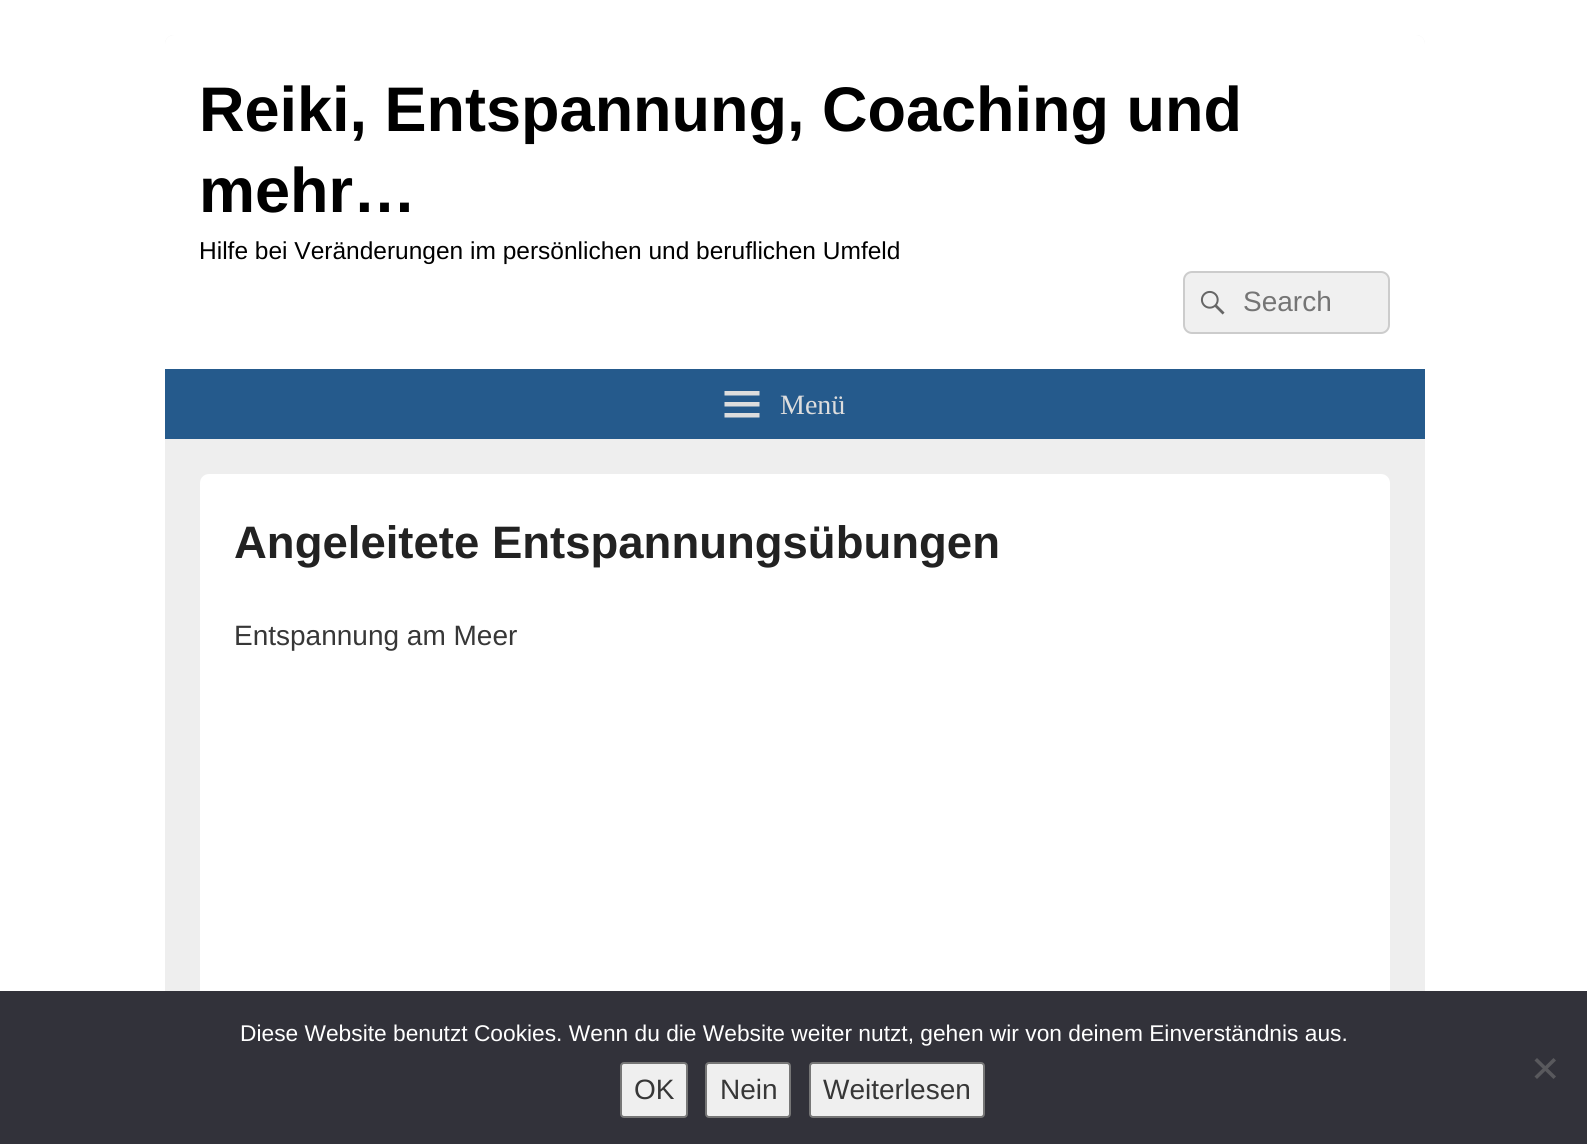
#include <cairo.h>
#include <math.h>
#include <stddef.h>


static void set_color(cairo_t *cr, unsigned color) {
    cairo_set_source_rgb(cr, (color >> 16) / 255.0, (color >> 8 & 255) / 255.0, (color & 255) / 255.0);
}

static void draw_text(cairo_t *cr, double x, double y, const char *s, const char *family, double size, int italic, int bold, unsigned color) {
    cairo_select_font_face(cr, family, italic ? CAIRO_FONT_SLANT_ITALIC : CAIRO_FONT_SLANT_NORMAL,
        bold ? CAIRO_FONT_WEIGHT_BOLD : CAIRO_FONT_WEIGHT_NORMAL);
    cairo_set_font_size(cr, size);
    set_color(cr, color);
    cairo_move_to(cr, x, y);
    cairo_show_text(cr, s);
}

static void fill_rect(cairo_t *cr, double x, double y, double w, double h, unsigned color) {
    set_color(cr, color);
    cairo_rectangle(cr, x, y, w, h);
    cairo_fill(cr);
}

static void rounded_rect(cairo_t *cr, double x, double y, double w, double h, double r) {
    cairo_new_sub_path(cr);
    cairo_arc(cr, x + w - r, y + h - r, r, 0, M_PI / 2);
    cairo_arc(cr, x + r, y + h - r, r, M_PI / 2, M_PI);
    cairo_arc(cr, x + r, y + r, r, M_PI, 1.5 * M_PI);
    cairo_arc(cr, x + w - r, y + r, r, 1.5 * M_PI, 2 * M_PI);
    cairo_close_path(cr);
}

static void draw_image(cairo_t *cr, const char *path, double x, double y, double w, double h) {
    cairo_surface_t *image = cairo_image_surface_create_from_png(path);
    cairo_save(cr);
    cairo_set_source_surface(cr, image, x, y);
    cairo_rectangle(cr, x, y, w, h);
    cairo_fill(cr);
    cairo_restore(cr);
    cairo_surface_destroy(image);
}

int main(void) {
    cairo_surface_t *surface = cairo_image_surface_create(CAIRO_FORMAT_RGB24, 1587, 1144);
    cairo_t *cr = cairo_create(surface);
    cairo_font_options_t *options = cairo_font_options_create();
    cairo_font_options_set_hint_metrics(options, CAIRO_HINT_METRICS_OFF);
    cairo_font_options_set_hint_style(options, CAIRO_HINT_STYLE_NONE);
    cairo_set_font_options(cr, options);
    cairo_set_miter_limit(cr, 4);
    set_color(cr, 0xFFFFFF);
    cairo_paint(cr);
    set_color(cr, 0xEEEEEE);
    rounded_rect(cr, 165, 35, 1260, 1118, 9);
    cairo_fill(cr);
    set_color(cr, 0xFFFFFF);
    cairo_new_path(cr);
    cairo_move_to(cr, 174, 35);
    cairo_line_to(cr, 1416, 35);
    cairo_curve_to(cr, 1421, 35, 1425, 39, 1425, 44);
    cairo_line_to(cr, 1425, 439);
    cairo_line_to(cr, 165, 439);
    cairo_line_to(cr, 165, 44);
    cairo_curve_to(cr, 165, 39, 169, 35, 174, 35);
    cairo_close_path(cr);
    cairo_fill(cr);
    draw_text(cr, 199, 131, "Reiki, Entspannung, Coaching und", "Liberation Sans", 63, 0, 1, 0x000000);
    draw_text(cr, 199, 212, "mehr…", "Liberation Sans", 63, 0, 1, 0x000000);
    draw_text(cr, 199, 259, "Hilfe bei Veränderungen im persönlichen und beruflichen Umfeld", "Liberation Sans", 24.5, 0, 0, 0x000000);
    set_color(cr, 0xF0F0F0);
    rounded_rect(cr, 1184, 272, 205, 61, 8);
    cairo_fill_preserve(cr);
    set_color(cr, 0xCCCCCC);
    cairo_stroke(cr);
    draw_image(cr, "assets/img1.png", 1200, 290, 25, 25);
    draw_text(cr, 1243, 311, "Search", "Liberation Sans", 28, 0, 0, 0x757575);
    fill_rect(cr, 165, 369, 1260, 70, 0x255A8C);
    set_color(cr, 0xDDDDDD);
    cairo_new_path(cr);
    cairo_move_to(cr, 724.5, 417.5);
    cairo_line_to(cr, 724.5, 413);
    cairo_line_to(cr, 759.5, 413);
    cairo_line_to(cr, 759.5, 417.5);
    cairo_close_path(cr);
    cairo_move_to(cr, 724.5, 391);
    cairo_line_to(cr, 759.5, 391);
    cairo_line_to(cr, 759.5, 395.5);
    cairo_line_to(cr, 724.5, 395.5);
    cairo_close_path(cr);
    cairo_move_to(cr, 724.5, 406.5);
    cairo_line_to(cr, 724.5, 402);
    cairo_line_to(cr, 759.5, 402);
    cairo_line_to(cr, 759.5, 406.5);
    cairo_close_path(cr);
    cairo_fill(cr);
    draw_text(cr, 780, 414, "Menü", "Liberation Serif", 28, 0, 0, 0xDDDDDD);
    set_color(cr, 0xFFFFFF);
    rounded_rect(cr, 200, 474, 1190, 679, 9);
    cairo_fill(cr);
    draw_text(cr, 234, 558, "Angeleitete Entspannungsübungen", "Liberation Sans", 45.5, 0, 1, 0x222222);
    draw_text(cr, 234, 645, "Entspannung am Meer", "Liberation Sans", 28, 0, 0, 0x373737);
    fill_rect(cr, 0, 991, 1587, 153, 0x32323A);
    draw_text(cr, 240, 1041, "Diese Website benutzt Cookies. Wenn du die Website weiter nutzt, gehen wir von deinem Einverständnis aus.", "Liberation Sans", 22.75, 0, 0, 0xFFFFFF);
    set_color(cr, 0x59595D);
    cairo_new_path(cr);
    cairo_move_to(cr, 1553.5, 1058);
    cairo_line_to(cr, 1556, 1060.5);
    cairo_line_to(cr, 1537, 1079);
    cairo_line_to(cr, 1534.5, 1076.5);
    cairo_close_path(cr);
    cairo_fill(cr);
    cairo_new_path(cr);
    cairo_move_to(cr, 1534.5, 1060.5);
    cairo_line_to(cr, 1537, 1058);
    cairo_line_to(cr, 1556, 1076.5);
    cairo_line_to(cr, 1553.5, 1079);
    cairo_close_path(cr);
    cairo_fill(cr);
    set_color(cr, 0xEFEFEF);
    rounded_rect(cr, 621, 1063, 66, 54, 3);
    cairo_fill_preserve(cr);
    set_color(cr, 0x767676);
    cairo_stroke(cr);
    draw_text(cr, 634, 1099, "OK", "Liberation Sans", 28, 0, 0, 0x373737);
    set_color(cr, 0xEFEFEF);
    rounded_rect(cr, 706, 1063, 84, 54, 3);
    cairo_fill_preserve(cr);
    set_color(cr, 0x767676);
    cairo_stroke(cr);
    draw_text(cr, 720, 1099, "Nein", "Liberation Sans", 28, 0, 0, 0x373737);
    set_color(cr, 0xEFEFEF);
    rounded_rect(cr, 810, 1063, 174, 54, 3);
    cairo_fill_preserve(cr);
    set_color(cr, 0x767676);
    cairo_stroke(cr);
    draw_text(cr, 823, 1099, "Weiterlesen", "Liberation Sans", 28, 0, 0, 0x373737);
    cairo_surface_write_to_png(surface, "output.png");
    cairo_font_options_destroy(options);
    cairo_destroy(cr);
    cairo_surface_destroy(surface);
    return 0;
}
